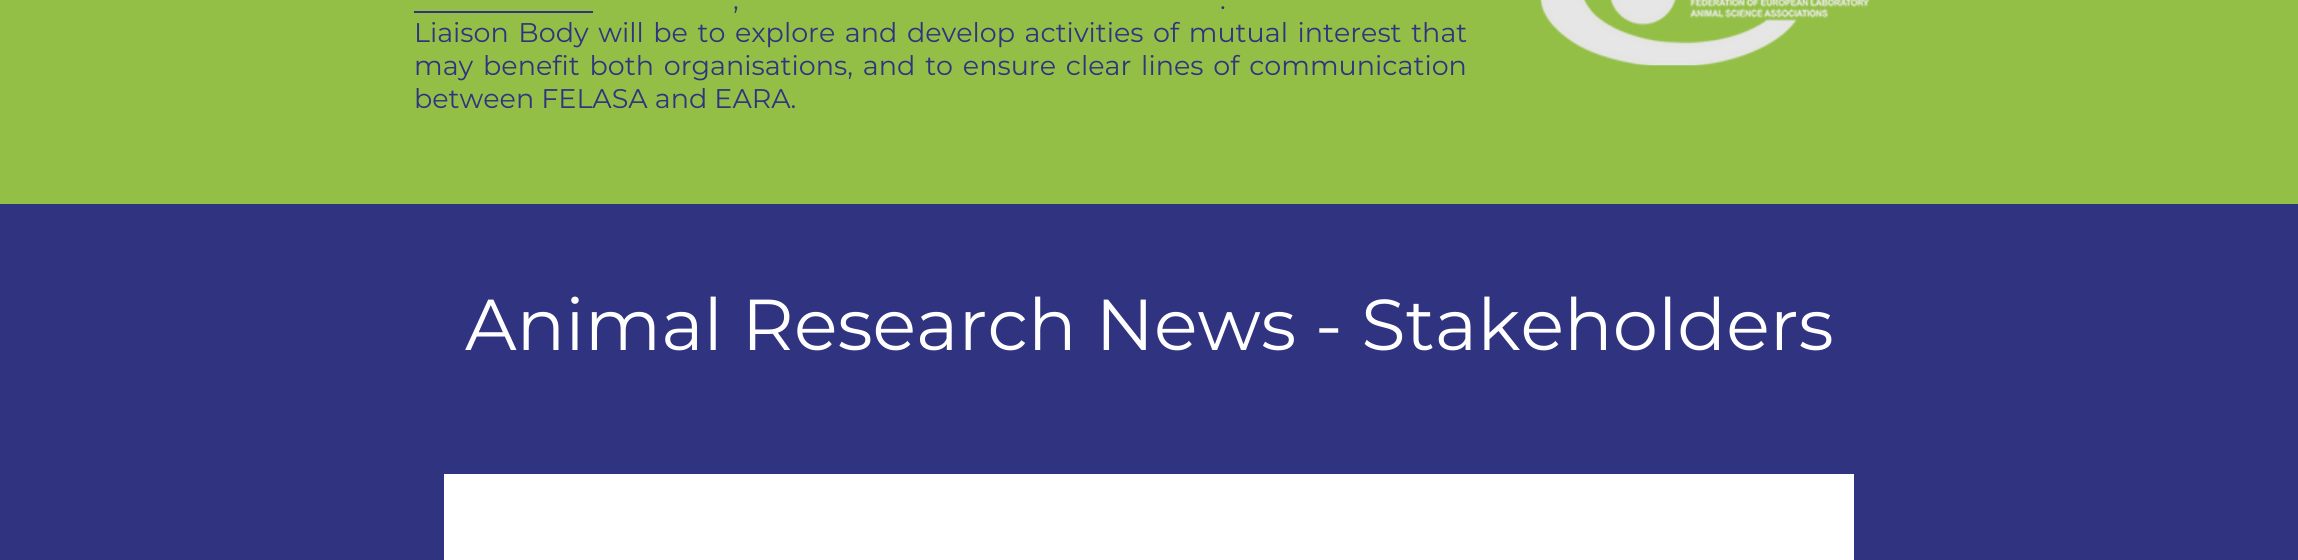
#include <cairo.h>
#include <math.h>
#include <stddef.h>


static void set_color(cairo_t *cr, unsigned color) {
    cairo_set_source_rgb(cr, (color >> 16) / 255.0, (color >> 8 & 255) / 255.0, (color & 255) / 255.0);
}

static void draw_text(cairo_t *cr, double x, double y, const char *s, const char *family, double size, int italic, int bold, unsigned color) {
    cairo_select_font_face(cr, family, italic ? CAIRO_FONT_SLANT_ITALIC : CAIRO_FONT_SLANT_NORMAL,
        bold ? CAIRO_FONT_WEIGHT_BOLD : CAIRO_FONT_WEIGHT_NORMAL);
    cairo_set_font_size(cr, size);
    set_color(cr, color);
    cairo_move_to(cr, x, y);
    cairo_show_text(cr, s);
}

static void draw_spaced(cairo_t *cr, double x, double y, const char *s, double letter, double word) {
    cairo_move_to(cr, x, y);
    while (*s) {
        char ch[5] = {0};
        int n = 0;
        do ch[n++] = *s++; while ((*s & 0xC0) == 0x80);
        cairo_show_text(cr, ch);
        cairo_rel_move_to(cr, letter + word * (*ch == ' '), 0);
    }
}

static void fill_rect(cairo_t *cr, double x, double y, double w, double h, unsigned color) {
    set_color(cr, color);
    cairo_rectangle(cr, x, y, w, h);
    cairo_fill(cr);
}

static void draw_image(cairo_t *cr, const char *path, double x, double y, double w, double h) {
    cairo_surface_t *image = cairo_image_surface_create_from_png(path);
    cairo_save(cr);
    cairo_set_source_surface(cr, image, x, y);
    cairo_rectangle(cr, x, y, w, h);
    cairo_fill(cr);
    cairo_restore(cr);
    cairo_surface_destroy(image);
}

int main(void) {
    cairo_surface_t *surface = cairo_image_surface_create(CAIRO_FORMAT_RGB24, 2298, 560);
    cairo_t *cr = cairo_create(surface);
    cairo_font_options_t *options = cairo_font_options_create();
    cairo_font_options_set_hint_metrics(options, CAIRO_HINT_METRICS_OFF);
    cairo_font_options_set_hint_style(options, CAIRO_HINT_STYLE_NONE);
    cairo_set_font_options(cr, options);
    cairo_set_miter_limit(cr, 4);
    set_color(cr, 0x93BF46);
    cairo_paint(cr);
    cairo_select_font_face(cr, "Montserrat", CAIRO_FONT_SLANT_NORMAL, CAIRO_FONT_WEIGHT_NORMAL);
    cairo_set_font_size(cr, 27);
    set_color(cr, 0x303380);
    draw_spaced(cr, 733, 9, ",", 0, 9);
    draw_spaced(cr, 1220, 9, ".", 0, 9);
    draw_spaced(cr, 414, 42, "Liaison Body will be to explore and develop activities of mutual interest that", 0, 2.5);
    fill_rect(cr, 414, 11, 179, 2, 0x303380);
    draw_spaced(cr, 414, 75, "may benefit both organisations, and to ensure clear lines of communication", 0, 2.75);
    draw_text(cr, 414, 108, "between FELASA and EARA.", "Montserrat", 27, 0, 0, 0x303380);
    draw_image(cr, "assets/img1.png", 1540, 0, 329, 66);
    fill_rect(cr, 0, 204, 2298, 356, 0x303380);
    draw_text(cr, 465, 350, "Animal Research News - Stakeholders", "Montserrat", 72, 0, 0, 0xFFFFFF);
    fill_rect(cr, 444, 474, 1410, 86, 0xFFFFFF);
    cairo_surface_write_to_png(surface, "output.png");
    cairo_font_options_destroy(options);
    cairo_destroy(cr);
    cairo_surface_destroy(surface);
    return 0;
}
